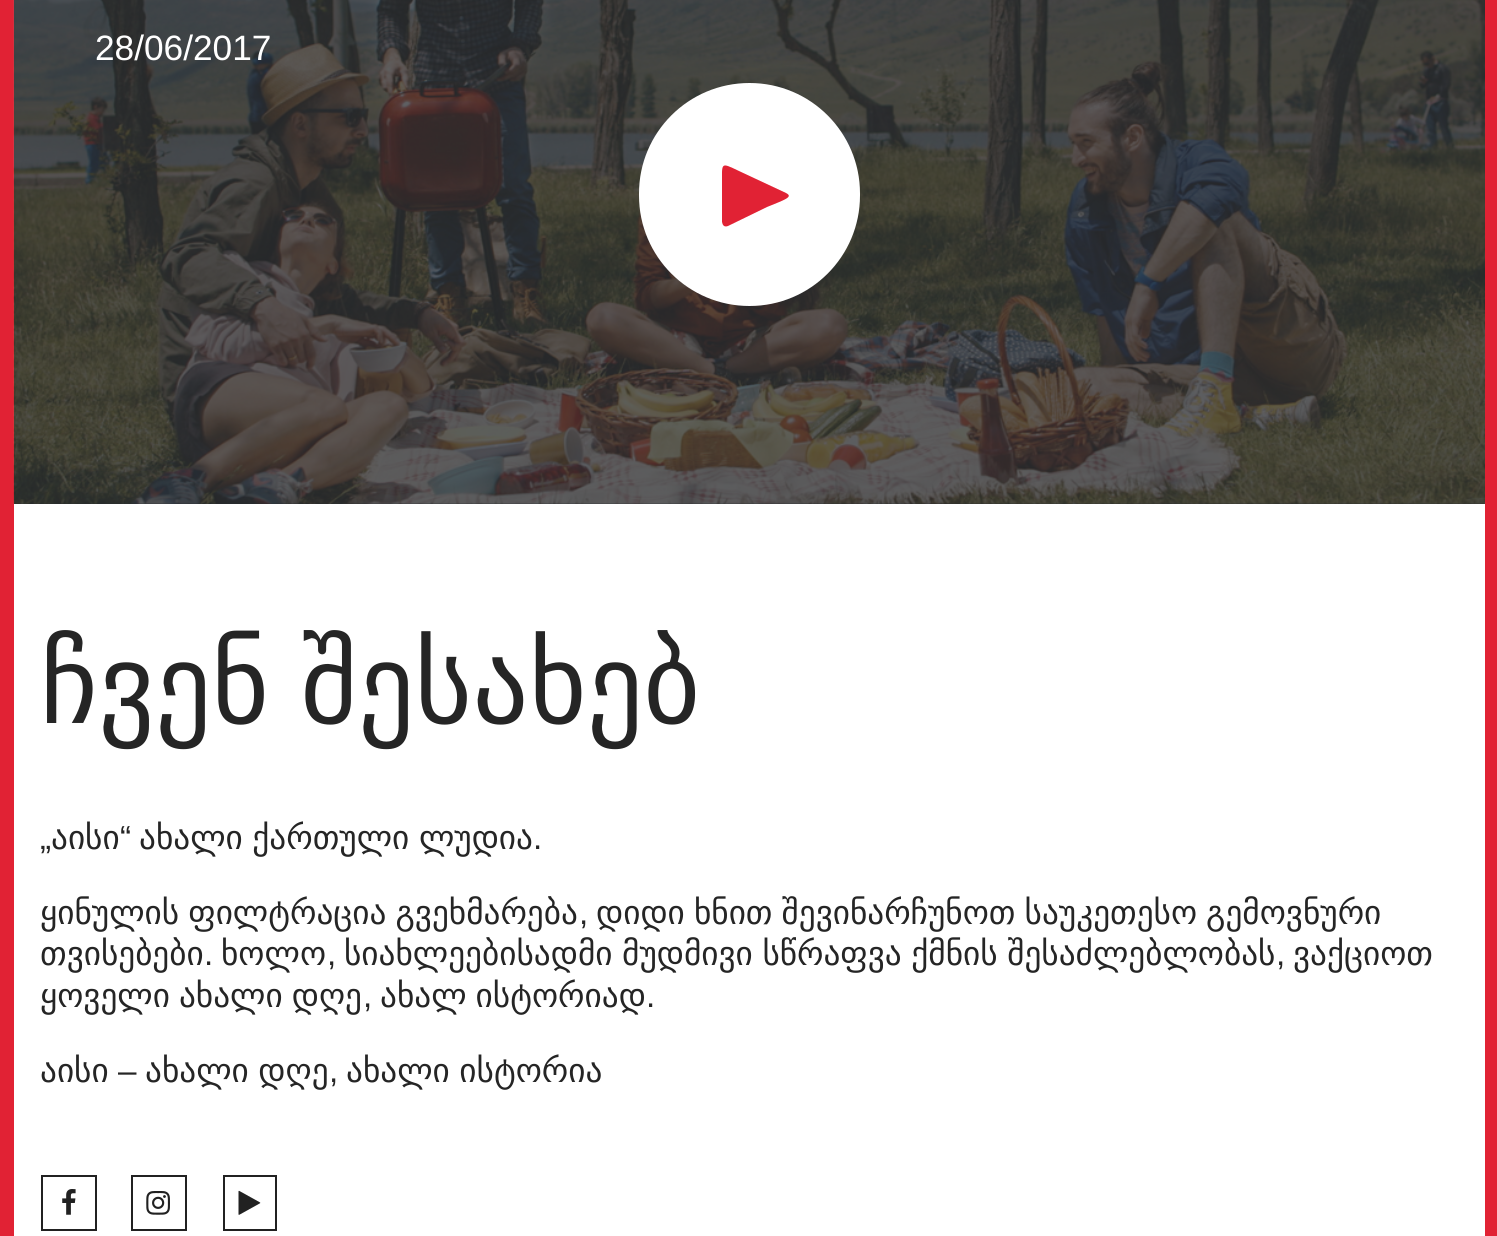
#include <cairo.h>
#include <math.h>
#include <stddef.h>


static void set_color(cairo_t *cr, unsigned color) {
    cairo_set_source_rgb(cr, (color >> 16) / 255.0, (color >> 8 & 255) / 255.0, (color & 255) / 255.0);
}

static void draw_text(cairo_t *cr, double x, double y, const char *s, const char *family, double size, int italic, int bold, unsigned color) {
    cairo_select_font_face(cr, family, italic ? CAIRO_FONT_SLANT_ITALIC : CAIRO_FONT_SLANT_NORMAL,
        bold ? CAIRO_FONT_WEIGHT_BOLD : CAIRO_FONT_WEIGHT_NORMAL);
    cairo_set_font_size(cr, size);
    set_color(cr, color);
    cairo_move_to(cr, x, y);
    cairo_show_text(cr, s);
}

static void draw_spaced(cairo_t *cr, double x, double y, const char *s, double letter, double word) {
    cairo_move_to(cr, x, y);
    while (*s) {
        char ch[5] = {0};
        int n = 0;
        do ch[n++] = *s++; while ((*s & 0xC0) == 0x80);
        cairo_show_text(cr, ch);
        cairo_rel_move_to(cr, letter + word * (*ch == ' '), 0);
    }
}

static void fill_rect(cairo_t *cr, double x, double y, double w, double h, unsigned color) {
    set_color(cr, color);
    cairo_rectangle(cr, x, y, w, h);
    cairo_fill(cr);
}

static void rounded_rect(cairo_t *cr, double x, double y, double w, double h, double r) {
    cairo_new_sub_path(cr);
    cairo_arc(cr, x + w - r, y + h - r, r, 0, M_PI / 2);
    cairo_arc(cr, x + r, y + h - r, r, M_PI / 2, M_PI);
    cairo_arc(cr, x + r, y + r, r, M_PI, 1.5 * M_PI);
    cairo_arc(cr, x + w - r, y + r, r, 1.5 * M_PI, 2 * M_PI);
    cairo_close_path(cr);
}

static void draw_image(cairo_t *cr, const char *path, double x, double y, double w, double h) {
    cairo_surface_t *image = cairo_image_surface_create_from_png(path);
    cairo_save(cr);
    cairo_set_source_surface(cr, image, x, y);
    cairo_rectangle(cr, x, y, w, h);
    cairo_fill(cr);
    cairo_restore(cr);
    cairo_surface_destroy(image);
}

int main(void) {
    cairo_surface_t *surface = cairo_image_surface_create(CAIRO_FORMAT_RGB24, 1497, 1236);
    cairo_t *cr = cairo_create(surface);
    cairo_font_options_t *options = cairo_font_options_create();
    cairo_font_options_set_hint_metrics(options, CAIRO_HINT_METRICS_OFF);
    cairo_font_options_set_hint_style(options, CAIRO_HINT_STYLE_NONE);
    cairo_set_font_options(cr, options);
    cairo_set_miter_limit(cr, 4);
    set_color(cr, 0xE12234);
    cairo_paint(cr);
    fill_rect(cr, 14, 504, 1471, 732, 0xFFFFFF);
    fill_rect(cr, 14, 0, 1471, 504, 0x282A2E);
    draw_image(cr, "assets/img1.png", 13, 0, 1472, 504);
    draw_text(cr, 95, 60, "28/06/2017", "Liberation Sans", 35.25, 0, 0, 0xFFFFFF);
    rounded_rect(cr, 639, 83, 221, 223, 110.5);
    cairo_fill(cr);
    cairo_save(cr);
    cairo_rectangle(cr, 722, 117, 68, 155);
    cairo_clip(cr);
    set_color(cr, 0xE12234);
    cairo_set_fill_rule(cr, CAIRO_FILL_RULE_EVEN_ODD);
    cairo_new_path(cr);
    cairo_move_to(cr, 786, 193);
    cairo_line_to(cr, 739, 171);
    cairo_curve_to(cr, 720, 162, 722, 162, 722, 186);
    cairo_line_to(cr, 722, 214);
    cairo_curve_to(cr, 722, 216, 720, 229, 728, 226);
    cairo_line_to(cr, 767, 207);
    cairo_curve_to(cr, 784, 200, 794, 197, 786, 193);
    cairo_close_path(cr);
    cairo_fill(cr);
    cairo_restore(cr);
    cairo_select_font_face(cr, "DejaVu Sans", CAIRO_FONT_SLANT_NORMAL, CAIRO_FONT_WEIGHT_NORMAL);
    cairo_set_font_size(cr, 111);
    set_color(cr, 0x252525);
    draw_spaced(cr, 40, 723, "ჩვენ შესახებ", 0, -4);
    draw_text(cr, 51, 849, "აისი", "DejaVu Sans", 33.25, 0, 0, 0x252525);
    draw_text(cr, 120, 849, "“", "Liberation Sans", 33.25, 0, 0, 0x252525);
    cairo_select_font_face(cr, "DejaVu Sans", CAIRO_FONT_SLANT_NORMAL, CAIRO_FONT_WEIGHT_NORMAL);
    draw_spaced(cr, 139, 849, "ახალი ქართული ლუდია", 0, -1);
    draw_text(cr, 40, 849, "„", "Liberation Sans", 33.25, 0, 0, 0x252525);
    draw_text(cr, 533, 849, ".", "Liberation Sans", 33.25, 0, 0, 0x252525);
    cairo_select_font_face(cr, "DejaVu Sans", CAIRO_FONT_SLANT_NORMAL, CAIRO_FONT_WEIGHT_NORMAL);
    draw_spaced(cr, 40, 924, "ყინულის ფილტრაცია გვეხმარება", 0, -1.5);
    draw_text(cr, 579, 924, ",", "Liberation Sans", 33.25, 0, 0, 0x252525);
    cairo_select_font_face(cr, "DejaVu Sans", CAIRO_FONT_SLANT_NORMAL, CAIRO_FONT_WEIGHT_NORMAL);
    draw_spaced(cr, 596, 924, "დიდი ხნით შევინარჩუნოთ საუკეთესო გემოვნური", 0, -1.5);
    draw_text(cr, 40, 965, "თვისებები", "DejaVu Sans", 33.25, 0, 0, 0x252525);
    draw_text(cr, 204, 965, ".", "Liberation Sans", 33.25, 0, 0, 0x252525);
    draw_text(cr, 221, 965, "ხოლო", "DejaVu Sans", 33.25, 0, 0, 0x252525);
    draw_text(cr, 327, 965, ",", "Liberation Sans", 33.25, 0, 0, 0x252525);
    cairo_select_font_face(cr, "DejaVu Sans", CAIRO_FONT_SLANT_NORMAL, CAIRO_FONT_WEIGHT_NORMAL);
    draw_spaced(cr, 344, 965, "სიახლეებისადმი მუდმივი სწრაფვა ქმნის შესაძლებლობას", 0, -1);
    draw_text(cr, 1276, 965, ",", "Liberation Sans", 33.25, 0, 0, 0x252525);
    draw_text(cr, 1293, 965, "ვაქციოთ", "DejaVu Sans", 33.25, 0, 0, 0x252525);
    draw_spaced(cr, 40, 1007, "ყოველი ახალი დღე", 0, -1.5);
    draw_text(cr, 363, 1007, ",", "Liberation Sans", 33.25, 0, 0, 0x252525);
    cairo_select_font_face(cr, "DejaVu Sans", CAIRO_FONT_SLANT_NORMAL, CAIRO_FONT_WEIGHT_NORMAL);
    draw_spaced(cr, 380, 1007, "ახალ ისტორიად", 0, -1.5);
    draw_text(cr, 646, 1007, ".", "Liberation Sans", 33.25, 0, 0, 0x252525);
    draw_text(cr, 40, 1082, "აისი", "DejaVu Sans", 33.25, 0, 0, 0x252525);
    draw_text(cr, 118, 1082, "–", "Liberation Sans", 33.25, 0, 0, 0x252525);
    cairo_select_font_face(cr, "DejaVu Sans", CAIRO_FONT_SLANT_NORMAL, CAIRO_FONT_WEIGHT_NORMAL);
    draw_spaced(cr, 145, 1082, "ახალი დღე", 0, -1);
    draw_spaced(cr, 346, 1082, "ახალი ისტორია", 0, -1);
    draw_text(cr, 329, 1082, ",", "Liberation Sans", 33.25, 0, 0, 0x252525);
    cairo_rectangle(cr, 42, 1176, 54, 54);
    set_color(cr, 0x212121);
    cairo_stroke(cr);
    draw_image(cr, "assets/img2.png", 62, 1189, 14, 26);
    cairo_rectangle(cr, 132, 1176, 54, 54);
    cairo_stroke(cr);
    draw_image(cr, "assets/img3.png", 146, 1191, 24, 24);
    cairo_rectangle(cr, 224, 1176, 52, 54);
    cairo_stroke(cr);
    draw_image(cr, "assets/img4.png", 238, 1190, 23, 25);
    cairo_surface_write_to_png(surface, "output.png");
    cairo_font_options_destroy(options);
    cairo_destroy(cr);
    cairo_surface_destroy(surface);
    return 0;
}
